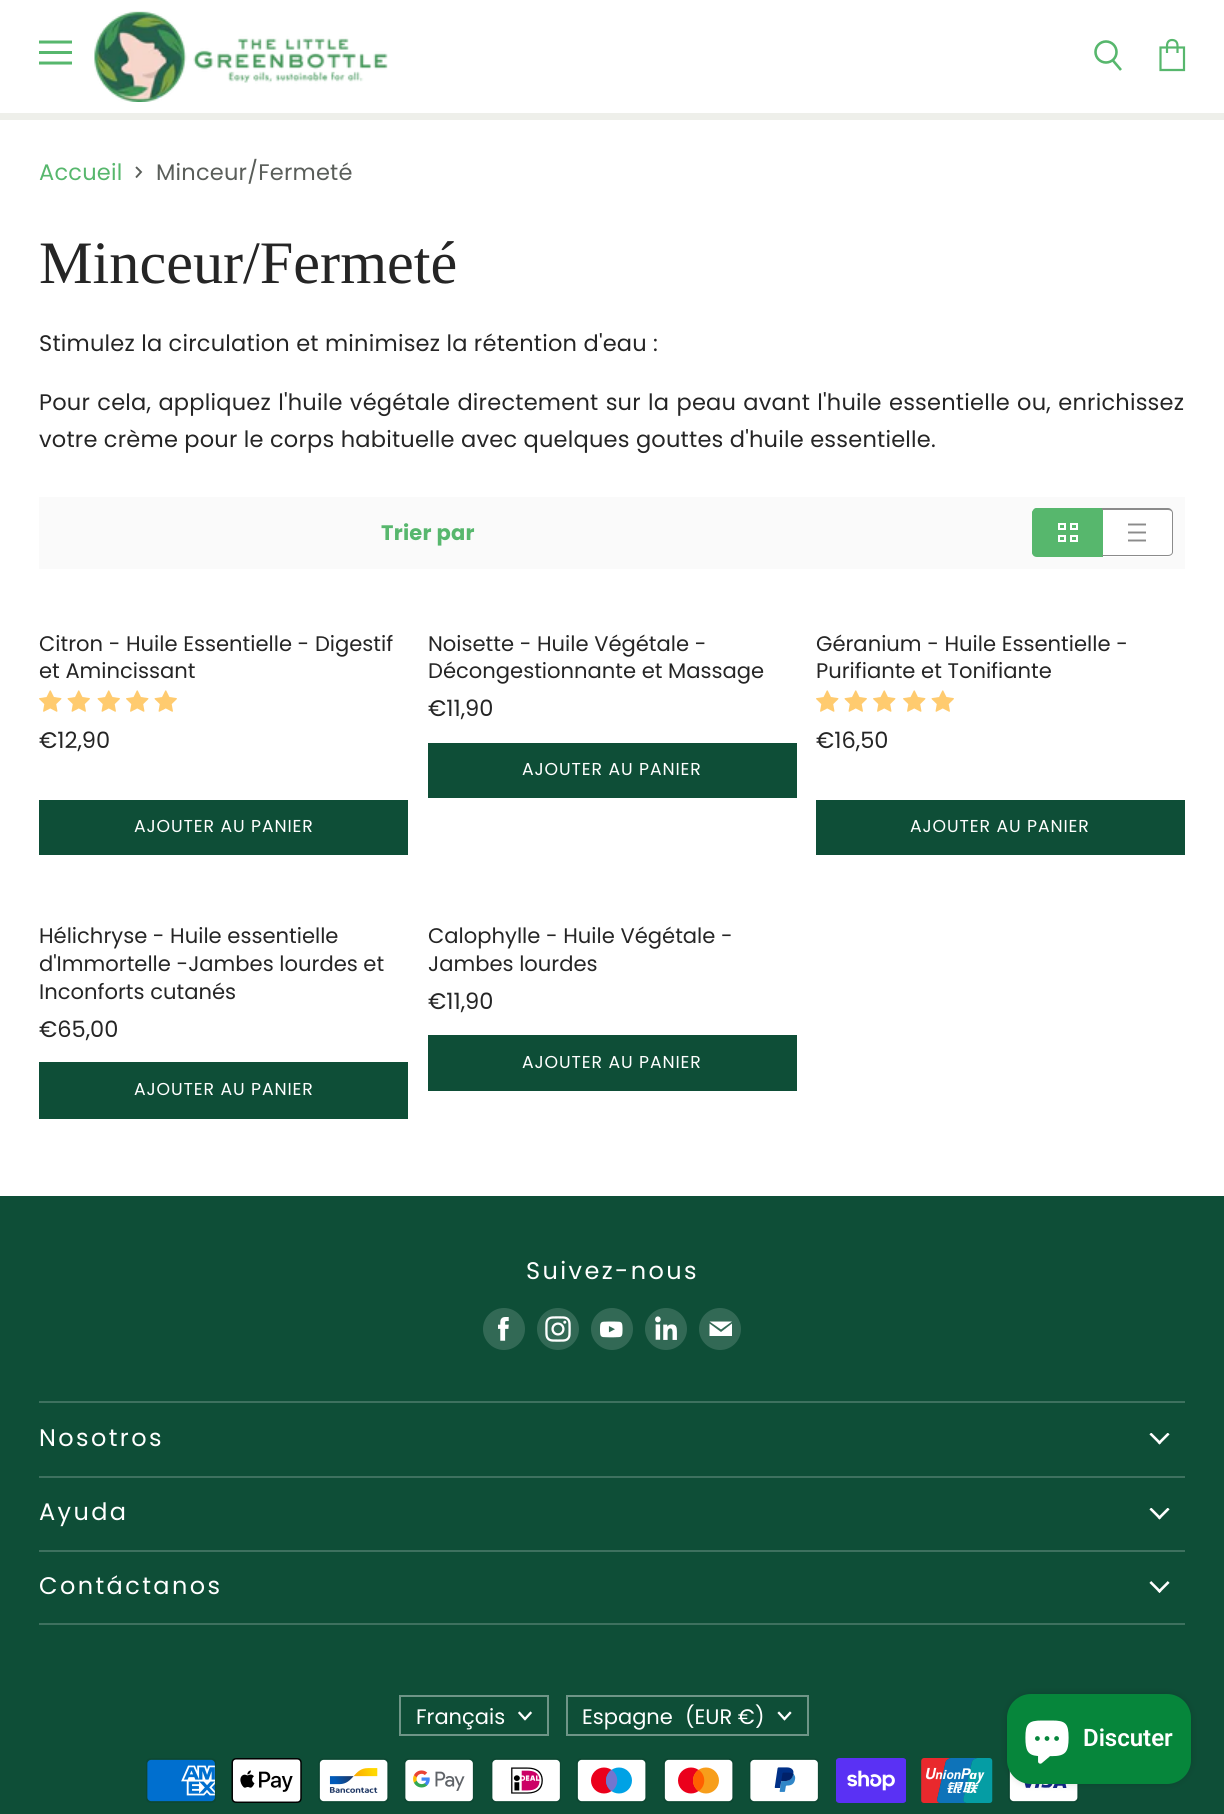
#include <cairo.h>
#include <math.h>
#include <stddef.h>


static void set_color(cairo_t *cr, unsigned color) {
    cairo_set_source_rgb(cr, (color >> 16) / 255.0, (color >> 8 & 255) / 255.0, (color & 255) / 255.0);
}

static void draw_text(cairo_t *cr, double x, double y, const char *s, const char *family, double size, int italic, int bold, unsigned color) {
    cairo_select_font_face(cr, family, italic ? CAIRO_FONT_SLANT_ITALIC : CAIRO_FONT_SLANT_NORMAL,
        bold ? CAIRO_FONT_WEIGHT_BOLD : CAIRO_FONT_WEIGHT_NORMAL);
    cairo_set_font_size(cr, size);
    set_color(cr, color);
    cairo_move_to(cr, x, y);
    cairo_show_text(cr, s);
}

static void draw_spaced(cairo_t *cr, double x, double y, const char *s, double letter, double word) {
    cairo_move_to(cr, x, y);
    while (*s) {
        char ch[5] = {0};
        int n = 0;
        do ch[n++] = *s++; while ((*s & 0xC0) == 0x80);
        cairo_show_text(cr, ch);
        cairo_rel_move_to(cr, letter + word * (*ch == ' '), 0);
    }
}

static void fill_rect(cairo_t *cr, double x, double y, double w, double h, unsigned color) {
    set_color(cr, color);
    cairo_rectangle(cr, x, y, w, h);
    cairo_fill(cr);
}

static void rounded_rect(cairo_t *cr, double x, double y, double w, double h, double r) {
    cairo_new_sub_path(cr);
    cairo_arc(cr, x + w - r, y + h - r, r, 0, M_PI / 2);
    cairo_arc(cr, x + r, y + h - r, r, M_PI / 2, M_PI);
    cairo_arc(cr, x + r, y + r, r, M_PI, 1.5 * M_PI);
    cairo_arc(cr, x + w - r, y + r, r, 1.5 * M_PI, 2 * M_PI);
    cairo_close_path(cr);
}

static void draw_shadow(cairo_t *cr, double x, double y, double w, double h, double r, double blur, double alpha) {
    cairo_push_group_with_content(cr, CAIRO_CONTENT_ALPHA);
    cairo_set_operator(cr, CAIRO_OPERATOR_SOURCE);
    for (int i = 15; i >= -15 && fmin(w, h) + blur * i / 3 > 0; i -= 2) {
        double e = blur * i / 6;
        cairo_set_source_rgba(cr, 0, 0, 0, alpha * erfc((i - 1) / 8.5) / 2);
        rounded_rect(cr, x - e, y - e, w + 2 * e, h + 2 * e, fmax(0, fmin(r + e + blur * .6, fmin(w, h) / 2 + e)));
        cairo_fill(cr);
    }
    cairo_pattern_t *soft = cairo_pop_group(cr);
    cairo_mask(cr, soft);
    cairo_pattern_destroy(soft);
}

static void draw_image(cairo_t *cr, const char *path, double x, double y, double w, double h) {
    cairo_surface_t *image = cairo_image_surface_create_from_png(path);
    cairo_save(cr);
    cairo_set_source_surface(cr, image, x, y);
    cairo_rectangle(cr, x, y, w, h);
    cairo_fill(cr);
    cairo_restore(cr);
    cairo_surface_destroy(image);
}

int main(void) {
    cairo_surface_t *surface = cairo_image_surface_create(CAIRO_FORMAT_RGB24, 1224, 1814);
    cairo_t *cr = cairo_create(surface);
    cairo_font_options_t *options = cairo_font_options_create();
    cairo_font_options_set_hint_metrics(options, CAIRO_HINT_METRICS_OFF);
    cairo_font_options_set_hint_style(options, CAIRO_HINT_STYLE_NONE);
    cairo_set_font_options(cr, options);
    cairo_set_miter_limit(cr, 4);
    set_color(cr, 0xFFFFFF);
    cairo_paint(cr);
    fill_rect(cr, 0, 113, 1224, 7, 0xEEEFEA);
    cairo_new_path(cr);
    cairo_move_to(cr, 70.5, 42);
    cairo_line_to(cr, 40.5, 42);
    set_color(cr, 0x57B76D);
    cairo_set_line_width(cr, 3);
    cairo_set_line_cap(cr, CAIRO_LINE_CAP_SQUARE);
    cairo_set_line_join(cr, CAIRO_LINE_JOIN_ROUND);
    cairo_stroke(cr);
    fill_rect(cr, 39, 51, 33, 3, 0x57B76D);
    cairo_new_path(cr);
    cairo_move_to(cr, 70.5, 63);
    cairo_line_to(cr, 40.5, 63);
    cairo_stroke(cr);
    draw_image(cr, "assets/img1.png", 94, 11, 294, 91);
    cairo_new_path(cr);
    cairo_move_to(cr, 1121, 70);
    cairo_line_to(cr, 1112.5, 60);
    cairo_set_line_width(cr, 2.6);
    cairo_set_line_cap(cr, CAIRO_LINE_CAP_BUTT);
    cairo_set_line_join(cr, CAIRO_LINE_JOIN_MITER);
    cairo_stroke(cr);
    cairo_arc(cr, 1106, 52, 10.5, 0, 2 * M_PI);
    cairo_stroke(cr);
    cairo_new_path(cr);
    cairo_move_to(cr, 1160.5, 47.5);
    cairo_line_to(cr, 1184, 47.5);
    cairo_line_to(cr, 1184, 70);
    cairo_line_to(cr, 1160.5, 70);
    cairo_close_path(cr);
    cairo_move_to(cr, 1177.5, 53);
    cairo_line_to(cr, 1177.5, 46);
    cairo_curve_to(cr, 1177.5, 41.5, 1175, 40, 1172, 40);
    cairo_curve_to(cr, 1169.5, 40, 1167, 41.5, 1167, 46);
    cairo_line_to(cr, 1167, 53);
    cairo_set_line_width(cr, 2.2);
    cairo_stroke(cr);
    cairo_select_font_face(cr, "Poppins", CAIRO_FONT_SLANT_NORMAL, CAIRO_FONT_WEIGHT_NORMAL);
    cairo_set_font_size(cr, 22.5);
    draw_spaced(cr, 39, 180, "Accueil", 0.22, 0);
    cairo_save(cr);
    cairo_new_path(cr);
    cairo_move_to(cr, 135.5, 178.5);
    cairo_line_to(cr, 135.5, 166.5);
    cairo_line_to(cr, 143, 166.5);
    cairo_line_to(cr, 143, 178.5);
    cairo_close_path(cr);
    cairo_clip(cr);
    cairo_new_path(cr);
    cairo_move_to(cr, 136, 177.5);
    cairo_line_to(cr, 141, 172);
    cairo_line_to(cr, 136, 167);
    set_color(cr, 0x5A5E5A);
    cairo_set_line_width(cr, 1.9);
    cairo_stroke(cr);
    cairo_restore(cr);
    set_color(cr, 0x5A5E5A);
    draw_spaced(cr, 156, 180, "Minceur/Fermeté", 0.22, 0);
    draw_text(cr, 39, 283, "Minceur/Fermeté", "Liberation Serif", 60.25, 0, 0, 0x252525);
    cairo_select_font_face(cr, "Poppins", CAIRO_FONT_SLANT_NORMAL, CAIRO_FONT_WEIGHT_NORMAL);
    cairo_set_font_size(cr, 22.5);
    draw_spaced(cr, 39, 351, "Stimulez la circulation et minimisez la rétention d'eau :", 0.22, 0);
    draw_spaced(cr, 39, 410, "Pour cela, appliquez l'huile végétale directement sur la peau avant l'huile essentielle ou, enrichissez", 0.22, 1);
    draw_spaced(cr, 39, 447, "votre crème pour le corps habituelle avec quelques gouttes d'huile essentielle.", 0.22, 0);
    fill_rect(cr, 39, 497, 1146, 72, 0xFAFAFA);
    cairo_select_font_face(cr, "Poppins", CAIRO_FONT_SLANT_NORMAL, CAIRO_FONT_WEIGHT_BOLD);
    cairo_set_font_size(cr, 21);
    set_color(cr, 0x57B76D);
    draw_spaced(cr, 381, 540, "Trier par", 0.25, 0);
    cairo_new_path(cr);
    cairo_move_to(cr, 1037, 509);
    cairo_line_to(cr, 1103, 509);
    cairo_line_to(cr, 1103, 557);
    cairo_line_to(cr, 1037, 557);
    cairo_curve_to(cr, 1034, 557, 1032, 555, 1032, 552);
    cairo_line_to(cr, 1032, 514);
    cairo_curve_to(cr, 1032, 511, 1034, 509, 1037, 509);
    cairo_close_path(cr);
    cairo_fill(cr);
    cairo_set_fill_rule(cr, CAIRO_FILL_RULE_EVEN_ODD);
    cairo_new_path(cr);
    cairo_move_to(cr, 1036, 508);
    cairo_line_to(cr, 1102, 508);
    cairo_line_to(cr, 1102, 556);
    cairo_line_to(cr, 1036, 556);
    cairo_curve_to(cr, 1034, 556, 1032, 554, 1032, 552);
    cairo_line_to(cr, 1032, 513);
    cairo_curve_to(cr, 1032, 511, 1034, 508, 1036, 508);
    cairo_close_path(cr);
    cairo_move_to(cr, 1036, 510);
    cairo_line_to(cr, 1102, 510);
    cairo_line_to(cr, 1102, 555);
    cairo_line_to(cr, 1036, 555);
    cairo_curve_to(cr, 1035, 555, 1034, 554, 1034, 552);
    cairo_line_to(cr, 1034, 513);
    cairo_curve_to(cr, 1034, 511, 1035, 510, 1036, 510);
    cairo_close_path(cr);
    cairo_fill(cr);
    cairo_rectangle(cr, 1059, 524, 6, 5);
    set_color(cr, 0xFFFFFF);
    cairo_set_line_width(cr, 2);
    cairo_stroke(cr);
    cairo_rectangle(cr, 1071, 524, 6, 5);
    cairo_stroke(cr);
    cairo_rectangle(cr, 1059, 536, 6, 5);
    cairo_stroke(cr);
    cairo_rectangle(cr, 1071, 536, 6, 5);
    cairo_stroke(cr);
    cairo_new_path(cr);
    cairo_move_to(cr, 1103, 509);
    cairo_line_to(cr, 1168, 509);
    cairo_curve_to(cr, 1171, 509, 1173, 511, 1173, 514);
    cairo_line_to(cr, 1173, 552);
    cairo_curve_to(cr, 1173, 555, 1171, 557, 1168, 557);
    cairo_line_to(cr, 1103, 557);
    cairo_close_path(cr);
    cairo_fill(cr);
    set_color(cr, 0x8B8B8B);
    cairo_new_path(cr);
    cairo_move_to(cr, 1102, 508);
    cairo_line_to(cr, 1168, 508);
    cairo_curve_to(cr, 1171, 508, 1173, 511, 1173, 513);
    cairo_line_to(cr, 1173, 552);
    cairo_curve_to(cr, 1173, 554, 1171, 556, 1168, 556);
    cairo_line_to(cr, 1102, 556);
    cairo_close_path(cr);
    cairo_move_to(cr, 1102, 510);
    cairo_line_to(cr, 1168, 510);
    cairo_curve_to(cr, 1170, 510, 1172, 511, 1172, 513);
    cairo_line_to(cr, 1172, 552);
    cairo_curve_to(cr, 1172, 554, 1170, 555, 1168, 555);
    cairo_line_to(cr, 1102, 555);
    cairo_close_path(cr);
    cairo_fill(cr);
    cairo_new_path(cr);
    cairo_move_to(cr, 1128, 524.5);
    cairo_line_to(cr, 1146, 524.5);
    cairo_move_to(cr, 1128, 540.5);
    cairo_line_to(cr, 1146, 540.5);
    cairo_move_to(cr, 1128, 532.5);
    cairo_line_to(cr, 1146, 532.5);
    cairo_set_line_width(cr, 1.9);
    cairo_set_line_join(cr, CAIRO_LINE_JOIN_ROUND);
    cairo_stroke(cr);
    draw_text(cr, 39, 651, "Citron - Huile Essentielle - Digestif", "Poppins", 21.1, 0, 0, 0x252525);
    draw_text(cr, 39, 678, "et Amincissant", "Poppins", 21.1, 0, 0, 0x252525);
    draw_image(cr, "assets/img2.png", 39, 690, 23, 22);
    draw_image(cr, "assets/img3.png", 67, 690, 23, 22);
    draw_image(cr, "assets/img3.png", 97, 690, 23, 22);
    draw_image(cr, "assets/img2.png", 126, 690, 23, 22);
    draw_image(cr, "assets/img3.png", 154, 690, 23, 22);
    draw_text(cr, 39, 748, "€12,90", "Poppins", 22.5, 0, 0, 0x252525);
    fill_rect(cr, 39, 800, 369, 55, 0x0E4E37);
    cairo_set_font_size(cr, 17.25);
    set_color(cr, 0xFFFFFF);
    draw_spaced(cr, 134, 832, "AJOUTER AU PANIER", 0.9, 0);
    draw_text(cr, 428, 651, "Noisette - Huile Végétale -", "Poppins", 21.1, 0, 0, 0x252525);
    draw_text(cr, 428, 678, "Décongestionnante et Massage", "Poppins", 21.1, 0, 0, 0x252525);
    draw_text(cr, 428, 716, "€11,90", "Poppins", 22.5, 0, 0, 0x252525);
    fill_rect(cr, 428, 743, 369, 55, 0x0E4E37);
    cairo_set_font_size(cr, 17.25);
    set_color(cr, 0xFFFFFF);
    draw_spaced(cr, 522, 775, "AJOUTER AU PANIER", 0.9, 0);
    draw_text(cr, 816, 651, "Géranium - Huile Essentielle -", "Poppins", 21.1, 0, 0, 0x252525);
    draw_text(cr, 816, 678, "Purifiante et Tonifiante", "Poppins", 21.1, 0, 0, 0x252525);
    draw_image(cr, "assets/img2.png", 816, 690, 23, 22);
    draw_image(cr, "assets/img3.png", 844, 690, 23, 22);
    draw_image(cr, "assets/img2.png", 873, 690, 23, 22);
    draw_image(cr, "assets/img2.png", 903, 690, 23, 22);
    draw_image(cr, "assets/img3.png", 931, 690, 23, 22);
    draw_text(cr, 816, 748, "€16,50", "Poppins", 22.5, 0, 0, 0x252525);
    fill_rect(cr, 816, 800, 369, 55, 0x0E4E37);
    cairo_set_font_size(cr, 17.25);
    set_color(cr, 0xFFFFFF);
    draw_spaced(cr, 910, 832, "AJOUTER AU PANIER", 0.9, 0);
    draw_text(cr, 39, 943, "Hélichryse - Huile essentielle", "Poppins", 21.1, 0, 0, 0x252525);
    draw_text(cr, 39, 971, "d'Immortelle -Jambes lourdes et", "Poppins", 21.1, 0, 0, 0x252525);
    draw_text(cr, 39, 999, "Inconforts cutanés", "Poppins", 21.1, 0, 0, 0x252525);
    draw_text(cr, 39, 1037, "€65,00", "Poppins", 22.5, 0, 0, 0x252525);
    fill_rect(cr, 39, 1062, 369, 57, 0x0E4E37);
    cairo_set_font_size(cr, 17.25);
    set_color(cr, 0xFFFFFF);
    draw_spaced(cr, 134, 1095, "AJOUTER AU PANIER", 0.9, 0);
    draw_text(cr, 428, 943, "Calophylle - Huile Végétale -", "Poppins", 21.1, 0, 0, 0x252525);
    draw_text(cr, 428, 971, "Jambes lourdes", "Poppins", 21.1, 0, 0, 0x252525);
    draw_text(cr, 428, 1009, "€11,90", "Poppins", 22.5, 0, 0, 0x252525);
    fill_rect(cr, 428, 1035, 369, 56, 0x0E4E37);
    cairo_set_font_size(cr, 17.25);
    set_color(cr, 0xFFFFFF);
    draw_spaced(cr, 522, 1068, "AJOUTER AU PANIER", 0.9, 0);
    fill_rect(cr, 0, 1196, 1224, 618, 0x0E4E37);
    fill_rect(cr, 39, 1401, 1146, 2, 0x3E715F);
    cairo_set_font_size(cr, 24);
    set_color(cr, 0xFFFFFF);
    draw_spaced(cr, 526, 1279, "Suivez-nous", 2.4, 0);
    set_color(cr, 0x326955);
    cairo_new_path(cr);
    cairo_arc(cr, 504, 1329, 21, 0, 2 * M_PI);
    cairo_fill(cr);
    draw_image(cr, "assets/img4.png", 498, 1317, 11, 24);
    cairo_arc(cr, 558, 1329, 21, 0, 2 * M_PI);
    cairo_fill(cr);
    draw_image(cr, "assets/img5.png", 545, 1316, 26, 26);
    cairo_arc(cr, 612, 1329, 21, 0, 2 * M_PI);
    cairo_fill(cr);
    draw_image(cr, "assets/img6.png", 600, 1321, 23, 17);
    cairo_arc(cr, 666, 1329, 21, 0, 2 * M_PI);
    cairo_fill(cr);
    draw_image(cr, "assets/img7.png", 655, 1316, 22, 24);
    cairo_arc(cr, 720, 1329, 21, 0, 2 * M_PI);
    cairo_fill(cr);
    set_color(cr, 0xFFFFFF);
    cairo_new_path(cr);
    cairo_move_to(cr, 732, 1321.5);
    cairo_line_to(cr, 709.5, 1321.5);
    cairo_line_to(cr, 721, 1329.5);
    cairo_close_path(cr);
    cairo_move_to(cr, 721, 1332);
    cairo_line_to(cr, 709.5, 1323.5);
    cairo_line_to(cr, 709.5, 1336);
    cairo_line_to(cr, 732, 1336);
    cairo_line_to(cr, 732, 1323.5);
    cairo_close_path(cr);
    cairo_fill(cr);
    fill_rect(cr, 39, 1476, 1146, 2, 0x3E715F);
    set_color(cr, 0xFFFFFF);
    draw_spaced(cr, 39, 1446, "Nosotros", 2.4, 0);
    draw_image(cr, "assets/img8.png", 1149, 1433, 21, 12);
    fill_rect(cr, 39, 1550, 1146, 2, 0x3E715F);
    set_color(cr, 0xFFFFFF);
    draw_spaced(cr, 39, 1520, "Ayuda", 2.4, 0);
    draw_image(cr, "assets/img8.png", 1149, 1508, 21, 12);
    fill_rect(cr, 39, 1623, 1146, 2, 0x3E715F);
    set_color(cr, 0xFFFFFF);
    draw_spaced(cr, 39, 1594, "Contáctanos", 2.4, 0);
    draw_image(cr, "assets/img9.png", 1149, 1581, 21, 12);
    cairo_rectangle(cr, 400, 1696, 148, 39);
    set_color(cr, 0x6E9587);
    cairo_set_line_width(cr, 2);
    cairo_set_line_join(cr, CAIRO_LINE_JOIN_MITER);
    cairo_stroke(cr);
    draw_text(cr, 416, 1724, "Français", "Poppins", 21, 0, 0, 0xFFFFFF);
    cairo_new_path(cr);
    cairo_move_to(cr, 525, 1719);
    cairo_line_to(cr, 530.5, 1713);
    cairo_move_to(cr, 525, 1719);
    cairo_line_to(cr, 519.5, 1713);
    cairo_set_line_width(cr, 2.3);
    cairo_set_line_cap(cr, CAIRO_LINE_CAP_SQUARE);
    cairo_stroke(cr);
    cairo_rectangle(cr, 567, 1696, 241, 39);
    set_color(cr, 0x6E9587);
    cairo_set_line_width(cr, 2);
    cairo_set_line_cap(cr, CAIRO_LINE_CAP_BUTT);
    cairo_stroke(cr);
    draw_text(cr, 582, 1724, "Espagne", "Poppins", 21, 0, 0, 0xFFFFFF);
    draw_text(cr, 685, 1724, "(EUR €)", "Poppins", 21, 0, 0, 0xFFFFFF);
    cairo_new_path(cr);
    cairo_move_to(cr, 784.5, 1719);
    cairo_line_to(cr, 790, 1713);
    cairo_move_to(cr, 784.5, 1719);
    cairo_line_to(cr, 779, 1713);
    cairo_set_line_width(cr, 2.3);
    cairo_set_line_cap(cr, CAIRO_LINE_CAP_SQUARE);
    cairo_stroke(cr);
    draw_image(cr, "assets/img10.png", 146, 1758, 70, 45);
    draw_image(cr, "assets/img11.png", 231, 1758, 71, 45);
    draw_image(cr, "assets/img12.png", 318, 1758, 71, 45);
    draw_image(cr, "assets/img13.png", 404, 1758, 70, 45);
    draw_image(cr, "assets/img14.png", 491, 1758, 70, 45);
    draw_image(cr, "assets/img15.png", 576, 1758, 71, 45);
    draw_image(cr, "assets/img16.png", 663, 1758, 71, 45);
    draw_image(cr, "assets/img17.png", 749, 1758, 70, 45);
    draw_image(cr, "assets/img18.png", 836, 1758, 70, 45);
    draw_image(cr, "assets/img19.png", 921, 1758, 72, 45);
    draw_image(cr, "assets/img20.png", 1008, 1767, 71, 36);
    set_color(cr, 0x000000);
    draw_shadow(cr, 1007, 1694, 184, 90, 24, 4, 0.15);
    set_color(cr, 0x06863B);
    rounded_rect(cr, 1007, 1694, 184, 90, 24);
    cairo_fill(cr);
    draw_image(cr, "assets/img21.png", 1025, 1720, 44, 44);
    draw_text(cr, 1083, 1746, "Discuter", "Roboto SemiBold", 24, 0, 0, 0xFFFFFF);
    cairo_surface_write_to_png(surface, "output.png");
    cairo_font_options_destroy(options);
    cairo_destroy(cr);
    cairo_surface_destroy(surface);
    return 0;
}
